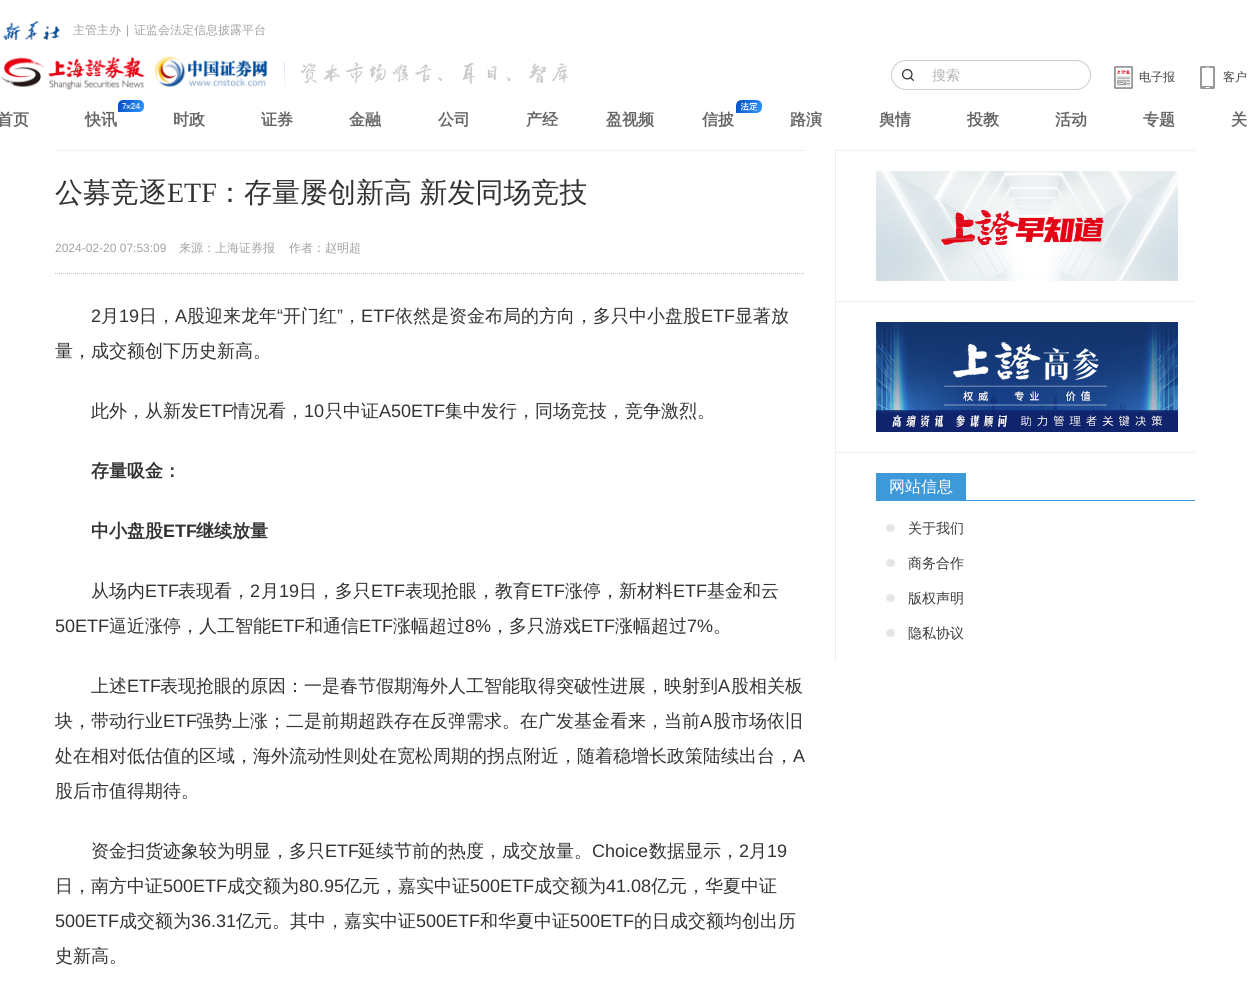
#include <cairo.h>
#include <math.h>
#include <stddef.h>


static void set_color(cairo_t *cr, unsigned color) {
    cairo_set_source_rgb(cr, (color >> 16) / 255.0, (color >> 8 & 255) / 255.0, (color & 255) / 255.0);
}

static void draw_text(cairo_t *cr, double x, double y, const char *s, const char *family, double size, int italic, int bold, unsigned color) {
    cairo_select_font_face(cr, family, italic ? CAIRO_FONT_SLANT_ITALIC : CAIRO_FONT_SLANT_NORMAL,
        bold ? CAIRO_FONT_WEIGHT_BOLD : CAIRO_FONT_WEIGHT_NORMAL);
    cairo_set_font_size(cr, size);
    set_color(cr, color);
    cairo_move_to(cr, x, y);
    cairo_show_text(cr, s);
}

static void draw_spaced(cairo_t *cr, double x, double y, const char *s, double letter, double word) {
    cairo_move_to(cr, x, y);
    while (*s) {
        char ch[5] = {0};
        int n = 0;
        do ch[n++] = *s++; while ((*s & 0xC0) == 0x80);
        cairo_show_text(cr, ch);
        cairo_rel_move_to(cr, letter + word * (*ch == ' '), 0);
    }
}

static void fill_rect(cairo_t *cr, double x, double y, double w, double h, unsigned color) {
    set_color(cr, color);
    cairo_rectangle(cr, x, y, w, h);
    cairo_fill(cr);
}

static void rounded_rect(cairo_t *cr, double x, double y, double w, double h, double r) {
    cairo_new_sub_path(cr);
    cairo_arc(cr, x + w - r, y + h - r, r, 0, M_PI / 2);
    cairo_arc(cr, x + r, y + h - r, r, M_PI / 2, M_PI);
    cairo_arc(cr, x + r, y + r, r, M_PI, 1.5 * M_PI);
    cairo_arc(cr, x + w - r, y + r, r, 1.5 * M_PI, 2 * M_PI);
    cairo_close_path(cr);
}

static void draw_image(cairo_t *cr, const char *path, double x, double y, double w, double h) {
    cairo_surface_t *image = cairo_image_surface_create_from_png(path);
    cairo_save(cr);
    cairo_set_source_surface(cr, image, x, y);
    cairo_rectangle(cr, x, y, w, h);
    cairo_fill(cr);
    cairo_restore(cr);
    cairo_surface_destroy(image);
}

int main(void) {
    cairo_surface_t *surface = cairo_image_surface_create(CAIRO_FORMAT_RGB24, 1249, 999);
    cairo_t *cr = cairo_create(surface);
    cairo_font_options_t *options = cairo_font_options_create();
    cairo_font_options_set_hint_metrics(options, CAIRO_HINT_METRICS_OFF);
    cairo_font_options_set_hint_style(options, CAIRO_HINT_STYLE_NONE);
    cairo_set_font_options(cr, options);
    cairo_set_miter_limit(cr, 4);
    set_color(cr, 0xFFFFFF);
    cairo_paint(cr);
    draw_image(cr, "assets/img1.png", 3, 21, 57, 19);
    draw_text(cr, 73, 34, "主管主办", "WenQuanYi Zen Hei Medium", 12, 0, 0, 0xA2A2A2);
    draw_text(cr, 126, 34, "|", "Liberation Sans", 12, 0, 0, 0xA2A2A2);
    draw_text(cr, 134, 34, "证监会法定信息披露平台", "WenQuanYi Zen Hei Medium", 12, 0, 0, 0xA2A2A2);
    draw_image(cr, "assets/img2.png", 1, 56, 267, 34);
    draw_image(cr, "assets/img3.png", 284, 62, 284, 25);
    draw_image(cr, "assets/img4.png", 902, 69, 12, 12);
    rounded_rect(cr, 891.5, 60.5, 199, 29, 14.5);
    set_color(cr, 0xCCCCCC);
    cairo_set_line_width(cr, 1);
    cairo_stroke(cr);
    draw_text(cr, 932, 80, "搜索", "WenQuanYi Zen Hei Medium", 14, 0, 0, 0xB3B3B3);
    draw_image(cr, "assets/img5.png", 1114, 66, 19, 23);
    draw_text(cr, 1139, 81, "电子报", "WenQuanYi Zen Hei Medium", 12, 0, 0, 0x414141);
    draw_image(cr, "assets/img6.png", 1200, 66, 15, 23);
    draw_text(cr, 1223, 81, "客户", "WenQuanYi Zen Hei Medium", 12, 0, 0, 0x414141);
    draw_text(cr, -3, 125, "首页", "WenQuanYi Zen Hei", 16, 0, 1, 0x666666);
    draw_image(cr, "assets/img7.png", 118, 100, 26, 12);
    draw_text(cr, 85, 125, "快讯", "WenQuanYi Zen Hei", 16, 0, 1, 0x666666);
    draw_text(cr, 173, 125, "时政", "WenQuanYi Zen Hei", 16, 0, 1, 0x666666);
    draw_text(cr, 261, 125, "证券", "WenQuanYi Zen Hei", 16, 0, 1, 0x666666);
    draw_text(cr, 349, 125, "金融", "WenQuanYi Zen Hei", 16, 0, 1, 0x666666);
    draw_text(cr, 438, 125, "公司", "WenQuanYi Zen Hei", 16, 0, 1, 0x666666);
    draw_text(cr, 526, 125, "产经", "WenQuanYi Zen Hei", 16, 0, 1, 0x666666);
    draw_text(cr, 606, 125, "盈视频", "WenQuanYi Zen Hei", 16, 0, 1, 0x666666);
    draw_image(cr, "assets/img8.png", 736, 100, 26, 13);
    draw_text(cr, 702, 125, "信披", "WenQuanYi Zen Hei", 16, 0, 1, 0x666666);
    draw_text(cr, 790, 125, "路演", "WenQuanYi Zen Hei", 16, 0, 1, 0x666666);
    draw_text(cr, 879, 125, "舆情", "WenQuanYi Zen Hei", 16, 0, 1, 0x666666);
    draw_text(cr, 967, 125, "投教", "WenQuanYi Zen Hei", 16, 0, 1, 0x666666);
    draw_text(cr, 1055, 125, "活动", "WenQuanYi Zen Hei", 16, 0, 1, 0x666666);
    draw_text(cr, 1143, 125, "专题", "WenQuanYi Zen Hei", 16, 0, 1, 0x666666);
    draw_text(cr, 1231, 125, "关", "WenQuanYi Zen Hei", 16, 0, 1, 0x666666);
    fill_rect(cr, 55, 150, 750, 1, 0xEEEEEE);
    draw_text(cr, 55, 202, "公募竞逐", "WenQuanYi Zen Hei Medium", 28, 0, 0, 0x333333);
    draw_text(cr, 167, 202, "ETF", "Liberation Serif", 28, 0, 0, 0x333333);
    cairo_select_font_face(cr, "WenQuanYi Zen Hei Medium", CAIRO_FONT_SLANT_NORMAL, CAIRO_FONT_WEIGHT_NORMAL);
    draw_spaced(cr, 216, 202, "：存量屡创新高 新发同场竞技", 0, -1);
    draw_text(cr, 55, 252, "2024-02-20 07:53:09", "Liberation Sans", 12, 0, 0, 0xA2A2A2);
    draw_text(cr, 179, 252, "来源：上海证券报", "WenQuanYi Zen Hei Medium", 12, 0, 0, 0xA2A2A2);
    draw_text(cr, 289, 252, "作者：赵明超", "WenQuanYi Zen Hei Medium", 12, 0, 0, 0xA2A2A2);
    cairo_new_path(cr);
    cairo_move_to(cr, 55, 273.5);
    cairo_line_to(cr, 805, 273.5);
    set_color(cr, 0xBEBEBE);
    cairo_set_dash(cr, (double[]){1, 1}, 2, 0);
    cairo_stroke(cr);
    draw_text(cr, 91, 322, "2", "Liberation Sans", 18, 0, 0, 0x333333);
    draw_text(cr, 101, 322, "月", "WenQuanYi Zen Hei Medium", 18, 0, 0, 0x333333);
    draw_text(cr, 119, 322, "19", "Liberation Sans", 18, 0, 0, 0x333333);
    draw_text(cr, 139, 322, "日，", "WenQuanYi Zen Hei Medium", 18, 0, 0, 0x333333);
    draw_text(cr, 175, 322, "A", "Liberation Sans", 18, 0, 0, 0x333333);
    draw_text(cr, 187, 322, "股迎来龙年", "WenQuanYi Zen Hei Medium", 18, 0, 0, 0x333333);
    draw_text(cr, 277, 322, "“", "Liberation Sans", 18, 0, 0, 0x333333);
    draw_text(cr, 283, 322, "开门红", "WenQuanYi Zen Hei Medium", 18, 0, 0, 0x333333);
    draw_text(cr, 337, 322, "”", "Liberation Sans", 18, 0, 0, 0x333333);
    draw_text(cr, 343, 322, "，", "WenQuanYi Zen Hei Medium", 18, 0, 0, 0x333333);
    draw_text(cr, 361, 322, "ETF", "Liberation Sans", 18, 0, 0, 0x333333);
    draw_text(cr, 395, 322, "依然是资金布局的方向，多只中小盘股", "WenQuanYi Zen Hei Medium", 18, 0, 0, 0x333333);
    draw_text(cr, 701, 322, "ETF", "Liberation Sans", 18, 0, 0, 0x333333);
    draw_text(cr, 735, 322, "显著放", "WenQuanYi Zen Hei Medium", 18, 0, 0, 0x333333);
    draw_text(cr, 55, 357, "量，成交额创下历史新高。", "WenQuanYi Zen Hei Medium", 18, 0, 0, 0x333333);
    draw_text(cr, 91, 417, "此外，从新发", "WenQuanYi Zen Hei Medium", 18, 0, 0, 0x333333);
    draw_text(cr, 199, 417, "ETF", "Liberation Sans", 18, 0, 0, 0x333333);
    draw_text(cr, 232, 417, "情况看，", "WenQuanYi Zen Hei Medium", 18, 0, 0, 0x333333);
    draw_text(cr, 304, 417, "10", "Liberation Sans", 18, 0, 0, 0x333333);
    draw_text(cr, 325, 417, "只中证", "WenQuanYi Zen Hei Medium", 18, 0, 0, 0x333333);
    draw_text(cr, 379, 417, "A50ETF", "Liberation Sans", 18, 0, 0, 0x333333);
    draw_text(cr, 445, 417, "集中发行，同场竞技，竞争激烈。", "WenQuanYi Zen Hei Medium", 18, 0, 0, 0x333333);
    draw_text(cr, 91, 477, "存量吸金：", "WenQuanYi Zen Hei", 18, 0, 1, 0x333333);
    draw_text(cr, 91, 537, "中小盘股", "WenQuanYi Zen Hei", 18, 0, 1, 0x333333);
    draw_text(cr, 163, 537, "ETF", "Liberation Sans", 18, 0, 1, 0x333333);
    draw_text(cr, 196, 537, "继续放量", "WenQuanYi Zen Hei", 18, 0, 1, 0x333333);
    draw_text(cr, 91, 597, "从场内", "WenQuanYi Zen Hei Medium", 18, 0, 0, 0x333333);
    draw_text(cr, 145, 597, "ETF", "Liberation Sans", 18, 0, 0, 0x333333);
    draw_text(cr, 178, 597, "表现看，", "WenQuanYi Zen Hei Medium", 18, 0, 0, 0x333333);
    draw_text(cr, 250, 597, "2", "Liberation Sans", 18, 0, 0, 0x333333);
    draw_text(cr, 261, 597, "月", "WenQuanYi Zen Hei Medium", 18, 0, 0, 0x333333);
    draw_text(cr, 279, 597, "19", "Liberation Sans", 18, 0, 0, 0x333333);
    draw_text(cr, 299, 597, "日，多只", "WenQuanYi Zen Hei Medium", 18, 0, 0, 0x333333);
    draw_text(cr, 371, 597, "ETF", "Liberation Sans", 18, 0, 0, 0x333333);
    draw_text(cr, 405, 597, "表现抢眼，教育", "WenQuanYi Zen Hei Medium", 18, 0, 0, 0x333333);
    draw_text(cr, 531, 597, "ETF", "Liberation Sans", 18, 0, 0, 0x333333);
    draw_text(cr, 565, 597, "涨停，新材料", "WenQuanYi Zen Hei Medium", 18, 0, 0, 0x333333);
    draw_text(cr, 673, 597, "ETF", "Liberation Sans", 18, 0, 0, 0x333333);
    draw_text(cr, 707, 597, "基金和云", "WenQuanYi Zen Hei Medium", 18, 0, 0, 0x333333);
    draw_text(cr, 55, 632, "50ETF", "Liberation Sans", 18, 0, 0, 0x333333);
    draw_text(cr, 109, 632, "逼近涨停，人工智能", "WenQuanYi Zen Hei Medium", 18, 0, 0, 0x333333);
    draw_text(cr, 271, 632, "ETF", "Liberation Sans", 18, 0, 0, 0x333333);
    draw_text(cr, 305, 632, "和通信", "WenQuanYi Zen Hei Medium", 18, 0, 0, 0x333333);
    draw_text(cr, 359, 632, "ETF", "Liberation Sans", 18, 0, 0, 0x333333);
    draw_text(cr, 393, 632, "涨幅超过", "WenQuanYi Zen Hei Medium", 18, 0, 0, 0x333333);
    draw_text(cr, 465, 632, "8%", "Liberation Sans", 18, 0, 0, 0x333333);
    draw_text(cr, 491, 632, "，多只游戏", "WenQuanYi Zen Hei Medium", 18, 0, 0, 0x333333);
    draw_text(cr, 581, 632, "ETF", "Liberation Sans", 18, 0, 0, 0x333333);
    draw_text(cr, 615, 632, "涨幅超过", "WenQuanYi Zen Hei Medium", 18, 0, 0, 0x333333);
    draw_text(cr, 687, 632, "7%", "Liberation Sans", 18, 0, 0, 0x333333);
    draw_text(cr, 713, 632, "。", "WenQuanYi Zen Hei Medium", 18, 0, 0, 0x333333);
    draw_text(cr, 91, 692, "上述", "WenQuanYi Zen Hei Medium", 18, 0, 0, 0x333333);
    draw_text(cr, 127, 692, "ETF", "Liberation Sans", 18, 0, 0, 0x333333);
    draw_text(cr, 160, 692, "表现抢眼的原因：一是春节假期海外人工智能取得突破性进展，映射到", "WenQuanYi Zen Hei Medium", 18, 0, 0, 0x333333);
    draw_text(cr, 718, 692, "A", "Liberation Sans", 18, 0, 0, 0x333333);
    draw_text(cr, 731, 692, "股相关板", "WenQuanYi Zen Hei Medium", 18, 0, 0, 0x333333);
    draw_text(cr, 55, 727, "块，带动行业", "WenQuanYi Zen Hei Medium", 18, 0, 0, 0x333333);
    draw_text(cr, 163, 727, "ETF", "Liberation Sans", 18, 0, 0, 0x333333);
    draw_text(cr, 196, 727, "强势上涨；二是前期超跌存在反弹需求。在广发基金看来，当前", "WenQuanYi Zen Hei Medium", 18, 0, 0, 0x333333);
    draw_text(cr, 700, 727, "A", "Liberation Sans", 18, 0, 0, 0x333333);
    draw_text(cr, 713, 727, "股市场依旧", "WenQuanYi Zen Hei Medium", 18, 0, 0, 0x333333);
    draw_text(cr, 55, 762, "处在相对低估值的区域，海外流动性则处在宽松周期的拐点附近，随着稳增长政策陆续出台，", "WenQuanYi Zen Hei Medium", 18, 0, 0, 0x333333);
    draw_text(cr, 793, 762, "A", "Liberation Sans", 18, 0, 0, 0x333333);
    draw_text(cr, 55, 797, "股后市值得期待。", "WenQuanYi Zen Hei Medium", 18, 0, 0, 0x333333);
    draw_text(cr, 91, 857, "资金扫货迹象较为明显，多只", "WenQuanYi Zen Hei Medium", 18, 0, 0, 0x333333);
    draw_text(cr, 325, 857, "ETF", "Liberation Sans", 18, 0, 0, 0x333333);
    draw_text(cr, 358, 857, "延续节前的热度，成交放量。", "WenQuanYi Zen Hei Medium", 18, 0, 0, 0x333333);
    draw_text(cr, 592, 857, "Choice", "Liberation Sans", 18, 0, 0, 0x333333);
    draw_text(cr, 649, 857, "数据显示，", "WenQuanYi Zen Hei Medium", 18, 0, 0, 0x333333);
    draw_text(cr, 739, 857, "2", "Liberation Sans", 18, 0, 0, 0x333333);
    draw_text(cr, 749, 857, "月", "WenQuanYi Zen Hei Medium", 18, 0, 0, 0x333333);
    draw_text(cr, 767, 857, "19", "Liberation Sans", 18, 0, 0, 0x333333);
    draw_text(cr, 55, 892, "日，南方中证", "WenQuanYi Zen Hei Medium", 18, 0, 0, 0x333333);
    draw_text(cr, 163, 892, "500ETF", "Liberation Sans", 18, 0, 0, 0x333333);
    draw_text(cr, 227, 892, "成交额为", "WenQuanYi Zen Hei Medium", 18, 0, 0, 0x333333);
    draw_text(cr, 299, 892, "80.95", "Liberation Sans", 18, 0, 0, 0x333333);
    draw_text(cr, 344, 892, "亿元，嘉实中证", "WenQuanYi Zen Hei Medium", 18, 0, 0, 0x333333);
    draw_text(cr, 470, 892, "500ETF", "Liberation Sans", 18, 0, 0, 0x333333);
    draw_text(cr, 534, 892, "成交额为", "WenQuanYi Zen Hei Medium", 18, 0, 0, 0x333333);
    draw_text(cr, 606, 892, "41.08", "Liberation Sans", 18, 0, 0, 0x333333);
    draw_text(cr, 651, 892, "亿元，华夏中证", "WenQuanYi Zen Hei Medium", 18, 0, 0, 0x333333);
    draw_text(cr, 55, 927, "500ETF", "Liberation Sans", 18, 0, 0, 0x333333);
    draw_text(cr, 119, 927, "成交额为", "WenQuanYi Zen Hei Medium", 18, 0, 0, 0x333333);
    draw_text(cr, 191, 927, "36.31", "Liberation Sans", 18, 0, 0, 0x333333);
    draw_text(cr, 236, 927, "亿元。其中，嘉实中证", "WenQuanYi Zen Hei Medium", 18, 0, 0, 0x333333);
    draw_text(cr, 416, 927, "500ETF", "Liberation Sans", 18, 0, 0, 0x333333);
    draw_text(cr, 480, 927, "和华夏中证", "WenQuanYi Zen Hei Medium", 18, 0, 0, 0x333333);
    draw_text(cr, 570, 927, "500ETF", "Liberation Sans", 18, 0, 0, 0x333333);
    draw_text(cr, 634, 927, "的日成交额均创出历", "WenQuanYi Zen Hei Medium", 18, 0, 0, 0x333333);
    draw_text(cr, 55, 962, "史新高。", "WenQuanYi Zen Hei Medium", 18, 0, 0, 0x333333);
    fill_rect(cr, 835, 150, 1, 511, 0xEEEEEE);
    fill_rect(cr, 836, 150, 359, 1, 0xEEEEEE);
    draw_image(cr, "assets/img9.png", 876, 171, 302, 110);
    fill_rect(cr, 836, 301, 359, 1, 0xEEEEEE);
    draw_image(cr, "assets/img10.png", 876, 322, 302, 110);
    fill_rect(cr, 836, 452, 359, 1, 0xEEEEEE);
    fill_rect(cr, 966, 500, 229, 1, 0x3D99D8);
    fill_rect(cr, 876, 473, 90, 28, 0x3D99D8);
    draw_text(cr, 889, 492, "网站信息", "WenQuanYi Zen Hei Medium", 16, 0, 0, 0xFFFFFF);
    draw_image(cr, "assets/img11.png", 886, 524, 9, 8);
    draw_text(cr, 908, 533, "关于我们", "WenQuanYi Zen Hei Medium", 14, 0, 0, 0x3A3A3A);
    draw_image(cr, "assets/img11.png", 886, 559, 9, 8);
    draw_text(cr, 908, 568, "商务合作", "WenQuanYi Zen Hei Medium", 14, 0, 0, 0x3A3A3A);
    draw_image(cr, "assets/img11.png", 886, 594, 9, 8);
    draw_text(cr, 908, 603, "版权声明", "WenQuanYi Zen Hei Medium", 14, 0, 0, 0x3A3A3A);
    draw_image(cr, "assets/img11.png", 886, 629, 9, 8);
    draw_text(cr, 908, 638, "隐私协议", "WenQuanYi Zen Hei Medium", 14, 0, 0, 0x3A3A3A);
    cairo_surface_write_to_png(surface, "output.png");
    cairo_font_options_destroy(options);
    cairo_destroy(cr);
    cairo_surface_destroy(surface);
    return 0;
}
